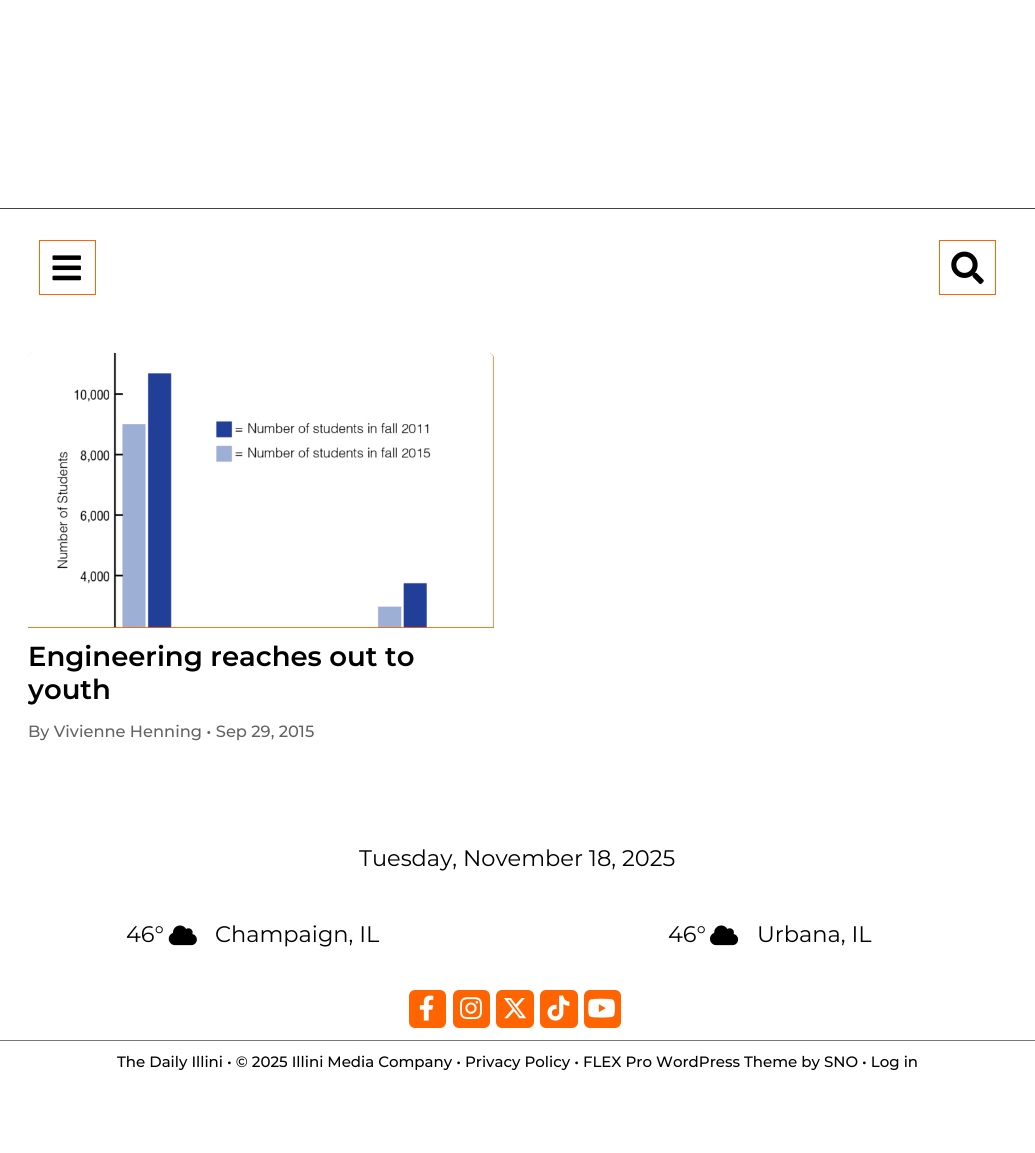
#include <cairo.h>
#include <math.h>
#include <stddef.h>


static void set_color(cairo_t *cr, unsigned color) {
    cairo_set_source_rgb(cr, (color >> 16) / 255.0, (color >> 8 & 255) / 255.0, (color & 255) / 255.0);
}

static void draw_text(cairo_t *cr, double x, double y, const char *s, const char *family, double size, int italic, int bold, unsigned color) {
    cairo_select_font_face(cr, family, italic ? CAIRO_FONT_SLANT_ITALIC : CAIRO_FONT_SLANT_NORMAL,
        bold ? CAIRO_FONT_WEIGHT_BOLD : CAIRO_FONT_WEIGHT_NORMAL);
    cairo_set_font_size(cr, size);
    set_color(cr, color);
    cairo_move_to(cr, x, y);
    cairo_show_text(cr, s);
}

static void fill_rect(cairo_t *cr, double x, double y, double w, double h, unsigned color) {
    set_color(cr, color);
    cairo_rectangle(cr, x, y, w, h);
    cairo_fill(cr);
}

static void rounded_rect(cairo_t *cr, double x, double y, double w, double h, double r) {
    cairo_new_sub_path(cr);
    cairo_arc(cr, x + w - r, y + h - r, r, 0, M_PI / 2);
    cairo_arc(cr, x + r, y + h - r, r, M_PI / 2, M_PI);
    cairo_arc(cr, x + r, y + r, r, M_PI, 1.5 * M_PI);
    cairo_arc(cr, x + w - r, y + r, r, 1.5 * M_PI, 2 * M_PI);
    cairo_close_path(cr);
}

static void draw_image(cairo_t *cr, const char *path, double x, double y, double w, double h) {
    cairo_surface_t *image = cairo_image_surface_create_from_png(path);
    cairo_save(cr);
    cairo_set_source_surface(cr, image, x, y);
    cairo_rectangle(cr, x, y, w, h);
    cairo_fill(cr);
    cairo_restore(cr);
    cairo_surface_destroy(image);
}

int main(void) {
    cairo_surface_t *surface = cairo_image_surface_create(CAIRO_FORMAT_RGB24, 1035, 1153);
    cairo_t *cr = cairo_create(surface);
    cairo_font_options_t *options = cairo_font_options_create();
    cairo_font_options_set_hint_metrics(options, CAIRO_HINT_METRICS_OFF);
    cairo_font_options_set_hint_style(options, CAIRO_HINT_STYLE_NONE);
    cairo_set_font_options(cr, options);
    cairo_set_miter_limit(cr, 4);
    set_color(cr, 0xFFFFFF);
    cairo_paint(cr);
    fill_rect(cr, 0, 208, 1035, 1, 0x424242);
    cairo_rectangle(cr, 39.5, 240.5, 56, 54);
    set_color(cr, 0xFF6400);
    cairo_set_line_width(cr, 1);
    cairo_stroke(cr);
    draw_image(cr, "assets/img1.png", 52, 255, 29, 26);
    cairo_rectangle(cr, 939.5, 240.5, 56, 54);
    cairo_stroke(cr);
    draw_image(cr, "assets/img2.png", 951, 251, 33, 33);
    cairo_new_path(cr);
    cairo_move_to(cr, 34, 353);
    cairo_line_to(cr, 488, 353);
    cairo_curve_to(cr, 491.5, 353, 494, 355.5, 494, 359);
    cairo_line_to(cr, 494, 628);
    cairo_line_to(cr, 28, 628);
    cairo_line_to(cr, 28, 359);
    cairo_curve_to(cr, 28, 355.5, 30.5, 353, 34, 353);
    cairo_close_path(cr);
    cairo_fill(cr);
    draw_image(cr, "assets/img3.png", 28, 352, 466, 276);
    draw_text(cr, 28, 666, "Engineering reaches out to", "Montserrat SemiBold", 27.5, 0, 0, 0x000000);
    cairo_save(cr);
    rounded_rect(cr, 28, 353, 466, 401, 6);
    cairo_clip(cr);
    draw_text(cr, 28, 699, "youth", "Montserrat SemiBold", 27.5, 0, 0, 0x000000);
    cairo_restore(cr);
    draw_text(cr, 28, 737, "By Vivienne Henning • Sep 29, 2015", "Montserrat Medium", 16.25, 0, 0, 0x636363);
    draw_text(cr, 359, 866, "Tuesday, November 18, 2025", "Montserrat", 22.5, 0, 0, 0x000000);
    draw_text(cr, 126, 942, "46°", "Montserrat", 22.5, 0, 0, 0x000000);
    draw_image(cr, "assets/img4.png", 168, 925, 29, 21);
    draw_text(cr, 215, 942, "Champaign, IL", "Montserrat", 22.5, 0, 0, 0x000000);
    draw_text(cr, 668, 942, "46°", "Montserrat", 22.5, 0, 0, 0x000000);
    draw_image(cr, "assets/img5.png", 710, 925, 29, 21);
    draw_text(cr, 757, 942, "Urbana, IL", "Montserrat", 22.5, 0, 0, 0x000000);
    set_color(cr, 0xFF6400);
    rounded_rect(cr, 409, 990, 37, 38, 6);
    cairo_fill(cr);
    draw_image(cr, "assets/img6.png", 419, 995, 15, 26);
    rounded_rect(cr, 453, 990, 37, 38, 6);
    cairo_fill(cr);
    draw_image(cr, "assets/img7.png", 460, 997, 22, 23);
    rounded_rect(cr, 496, 990, 38, 38, 6);
    cairo_fill(cr);
    draw_image(cr, "assets/img8.png", 504, 998, 23, 21);
    rounded_rect(cr, 540, 990, 38, 38, 6);
    cairo_fill(cr);
    draw_image(cr, "assets/img9.png", 547, 995, 23, 26);
    rounded_rect(cr, 584, 990, 37, 38, 6);
    cairo_fill(cr);
    draw_image(cr, "assets/img10.png", 588, 998, 27, 20);
    fill_rect(cr, 0, 1040, 1035, 1, 0x777777);
    draw_text(cr, 117, 1067, "The Daily Illini • © 2025 Illini Media Company • Privacy Policy • FLEX Pro WordPress Theme by SNO • Log in", "Montserrat Medium", 15, 0, 0, 0x000000);
    cairo_surface_write_to_png(surface, "output.png");
    cairo_font_options_destroy(options);
    cairo_destroy(cr);
    cairo_surface_destroy(surface);
    return 0;
}
